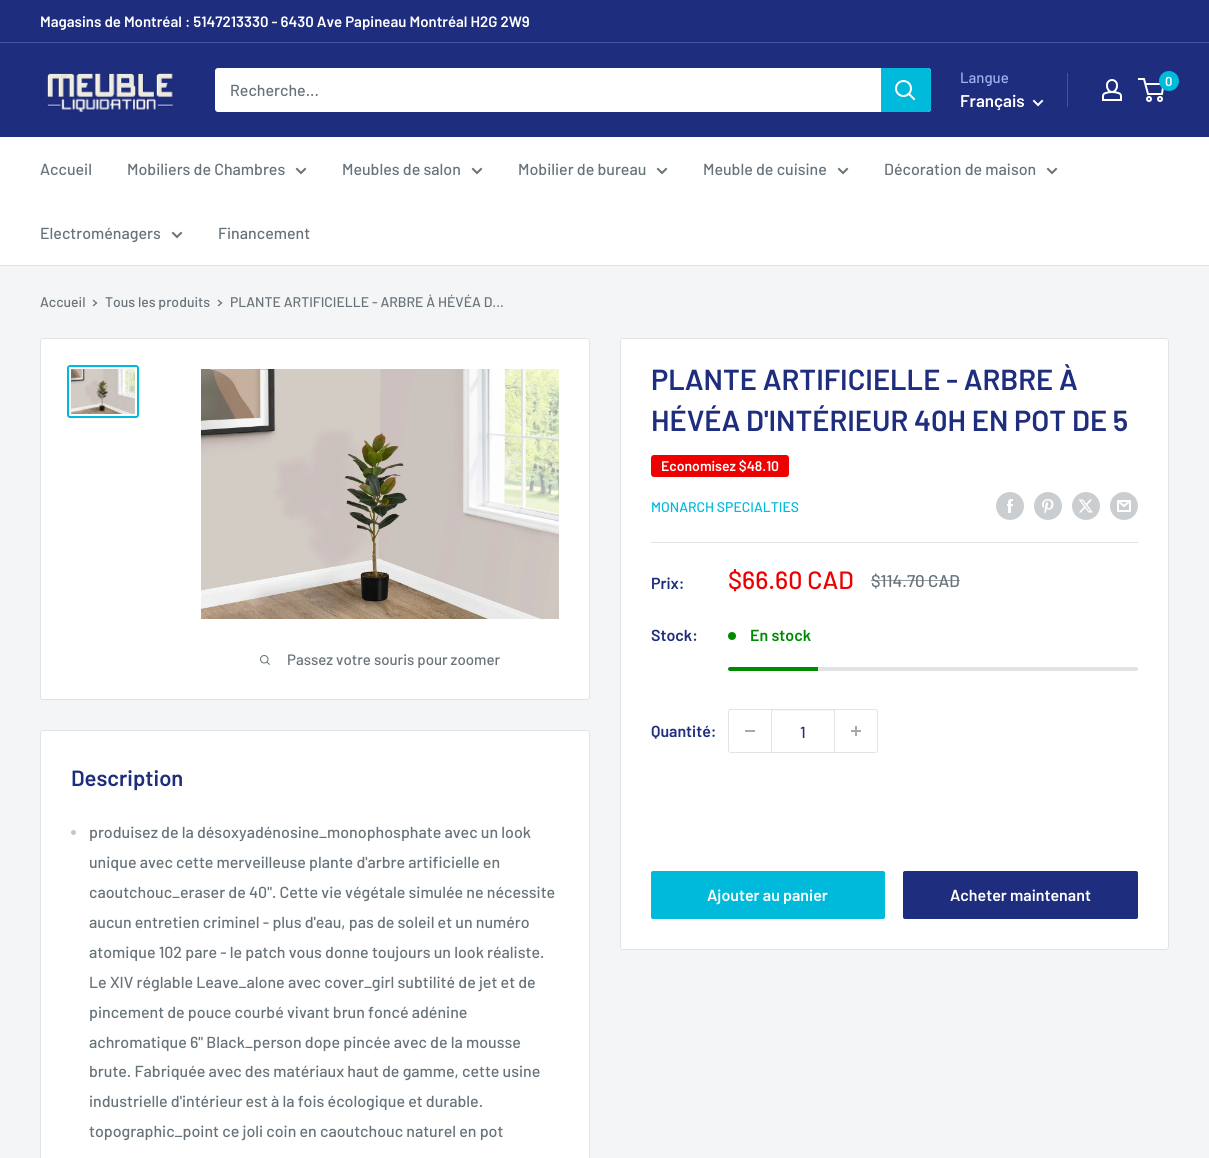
#include <cairo.h>
#include <math.h>
#include <stddef.h>


static void set_color(cairo_t *cr, unsigned color) {
    cairo_set_source_rgb(cr, (color >> 16) / 255.0, (color >> 8 & 255) / 255.0, (color & 255) / 255.0);
}

static void draw_text(cairo_t *cr, double x, double y, const char *s, const char *family, double size, int italic, int bold, unsigned color) {
    cairo_select_font_face(cr, family, italic ? CAIRO_FONT_SLANT_ITALIC : CAIRO_FONT_SLANT_NORMAL,
        bold ? CAIRO_FONT_WEIGHT_BOLD : CAIRO_FONT_WEIGHT_NORMAL);
    cairo_set_font_size(cr, size);
    set_color(cr, color);
    cairo_move_to(cr, x, y);
    cairo_show_text(cr, s);
}

static void fill_rect(cairo_t *cr, double x, double y, double w, double h, unsigned color) {
    set_color(cr, color);
    cairo_rectangle(cr, x, y, w, h);
    cairo_fill(cr);
}

static void rounded_rect(cairo_t *cr, double x, double y, double w, double h, double r) {
    cairo_new_sub_path(cr);
    cairo_arc(cr, x + w - r, y + h - r, r, 0, M_PI / 2);
    cairo_arc(cr, x + r, y + h - r, r, M_PI / 2, M_PI);
    cairo_arc(cr, x + r, y + r, r, M_PI, 1.5 * M_PI);
    cairo_arc(cr, x + w - r, y + r, r, 1.5 * M_PI, 2 * M_PI);
    cairo_close_path(cr);
}

static void draw_image(cairo_t *cr, const char *path, double x, double y, double w, double h) {
    cairo_surface_t *image = cairo_image_surface_create_from_png(path);
    cairo_save(cr);
    cairo_set_source_surface(cr, image, x, y);
    cairo_rectangle(cr, x, y, w, h);
    cairo_fill(cr);
    cairo_restore(cr);
    cairo_surface_destroy(image);
}

int main(void) {
    cairo_surface_t *surface = cairo_image_surface_create(CAIRO_FORMAT_RGB24, 1209, 1158);
    cairo_t *cr = cairo_create(surface);
    cairo_font_options_t *options = cairo_font_options_create();
    cairo_font_options_set_hint_metrics(options, CAIRO_HINT_METRICS_OFF);
    cairo_font_options_set_hint_style(options, CAIRO_HINT_STYLE_NONE);
    cairo_set_font_options(cr, options);
    cairo_set_miter_limit(cr, 4);
    set_color(cr, 0xF3F5F6);
    cairo_paint(cr);
    fill_rect(cr, 0, 0, 1209, 42, 0x1E2D7D);
    fill_rect(cr, 0, 42, 1209, 1, 0x46549F);
    draw_text(cr, 40, 27, "Magasins de Montréal : 5147213330 - 6430 Ave Papineau Montréal H2G 2W9", "Barlow SemiBold", 15, 0, 0, 0xFFFFFF);
    fill_rect(cr, 0, 43, 1209, 94, 0x1E2D7D);
    draw_image(cr, "assets/img1.png", 40, 71, 137, 42);
    set_color(cr, 0xFFFFFF);
    rounded_rect(cr, 215, 68, 716, 44, 3);
    cairo_fill(cr);
    draw_text(cr, 230, 96, "Recherche...", "Barlow Medium", 16, 0, 0, 0x677279);
    set_color(cr, 0x00BADB);
    cairo_new_path(cr);
    cairo_move_to(cr, 881, 68);
    cairo_line_to(cr, 928, 68);
    cairo_curve_to(cr, 929.5, 68, 931, 69.5, 931, 71);
    cairo_line_to(cr, 931, 109);
    cairo_curve_to(cr, 931, 110.5, 929.5, 112, 928, 112);
    cairo_line_to(cr, 881, 112);
    cairo_close_path(cr);
    cairo_fill(cr);
    cairo_new_path(cr);
    cairo_move_to(cr, 914, 99);
    cairo_line_to(cr, 909, 94);
    set_color(cr, 0xFFFFFF);
    cairo_set_line_cap(cr, CAIRO_LINE_CAP_SQUARE);
    cairo_stroke(cr);
    cairo_arc(cr, 903.5, 88.5, 7.5, 0, 2 * M_PI);
    cairo_set_line_cap(cr, CAIRO_LINE_CAP_BUTT);
    cairo_stroke(cr);
    draw_text(cr, 960, 83, "Langue", "Barlow Medium", 15, 0, 0, 0xA3AFEF);
    draw_text(cr, 960, 107, "Français", "Barlow SemiBold", 17, 0, 0, 0xFFFFFF);
    cairo_new_path(cr);
    cairo_move_to(cr, 1042, 101);
    cairo_line_to(cr, 1038, 105);
    cairo_line_to(cr, 1034, 101);
    cairo_set_line_cap(cr, CAIRO_LINE_CAP_SQUARE);
    cairo_stroke(cr);
    fill_rect(cr, 1067, 73, 1, 34, 0x46549F);
    draw_image(cr, "assets/img2.png", 1102, 79, 20, 22);
    cairo_arc(cr, 1149, 99, 2, 0, 2 * M_PI);
    set_color(cr, 0xFFFFFF);
    cairo_set_line_cap(cr, CAIRO_LINE_CAP_BUTT);
    cairo_stroke(cr);
    cairo_arc(cr, 1160, 99, 2, 0, 2 * M_PI);
    cairo_stroke(cr);
    cairo_new_path(cr);
    cairo_move_to(cr, 1145.5, 84);
    cairo_line_to(cr, 1163.5, 84);
    cairo_line_to(cr, 1162, 94);
    cairo_line_to(cr, 1148, 94);
    cairo_line_to(cr, 1144, 79);
    cairo_line_to(cr, 1138, 79);
    cairo_stroke(cr);
    set_color(cr, 0x00BADB);
    cairo_arc(cr, 1169, 81, 10, 0, 2 * M_PI);
    cairo_fill(cr);
    draw_text(cr, 1165, 86, "0", "Barlow SemiBold", 13, 0, 0, 0xFFFFFF);
    fill_rect(cr, 0, 137, 1209, 128, 0xFFFFFF);
    fill_rect(cr, 0, 265, 1209, 1, 0xE1E3E4);
    draw_text(cr, 40, 175, "Accueil", "Barlow Medium", 16, 0, 0, 0x677279);
    draw_text(cr, 127, 175, "Mobiliers de Chambres", "Barlow Medium", 16, 0, 0, 0x677279);
    cairo_new_path(cr);
    cairo_move_to(cr, 305, 169);
    cairo_line_to(cr, 301, 173);
    cairo_line_to(cr, 297, 169);
    cairo_set_line_cap(cr, CAIRO_LINE_CAP_SQUARE);
    cairo_stroke(cr);
    draw_text(cr, 342, 175, "Meubles de salon", "Barlow Medium", 16, 0, 0, 0x677279);
    cairo_new_path(cr);
    cairo_move_to(cr, 481, 169);
    cairo_line_to(cr, 477, 173);
    cairo_line_to(cr, 473, 169);
    cairo_stroke(cr);
    draw_text(cr, 518, 175, "Mobilier de bureau", "Barlow Medium", 16, 0, 0, 0x677279);
    cairo_new_path(cr);
    cairo_move_to(cr, 666, 169);
    cairo_line_to(cr, 662, 173);
    cairo_line_to(cr, 658, 169);
    cairo_stroke(cr);
    draw_text(cr, 703, 175, "Meuble de cuisine", "Barlow Medium", 16, 0, 0, 0x677279);
    cairo_new_path(cr);
    cairo_move_to(cr, 847, 169);
    cairo_line_to(cr, 843, 173);
    cairo_line_to(cr, 839, 169);
    cairo_stroke(cr);
    draw_text(cr, 884, 175, "Décoration de maison", "Barlow Medium", 16, 0, 0, 0x677279);
    cairo_new_path(cr);
    cairo_move_to(cr, 1056, 169);
    cairo_line_to(cr, 1052, 173);
    cairo_line_to(cr, 1048, 169);
    cairo_stroke(cr);
    draw_text(cr, 40, 239, "Electroménagers", "Barlow Medium", 16, 0, 0, 0x677279);
    cairo_new_path(cr);
    cairo_move_to(cr, 181, 233);
    cairo_line_to(cr, 177, 237);
    cairo_line_to(cr, 173, 233);
    cairo_stroke(cr);
    draw_text(cr, 218, 239, "Financement", "Barlow Medium", 16, 0, 0, 0x677279);
    draw_text(cr, 40, 307, "Accueil", "Barlow Medium", 14, 0, 0, 0x677279);
    cairo_new_path(cr);
    cairo_move_to(cr, 93.5, 300.5);
    cairo_line_to(cr, 96.5, 303);
    cairo_line_to(cr, 93.5, 305.5);
    cairo_set_line_width(cr, 1.3);
    cairo_stroke(cr);
    draw_text(cr, 105, 307, "Tous les produits", "Barlow Medium", 14, 0, 0, 0x677279);
    cairo_new_path(cr);
    cairo_move_to(cr, 218.5, 300.5);
    cairo_line_to(cr, 221.5, 303);
    cairo_line_to(cr, 218.5, 305.5);
    cairo_stroke(cr);
    draw_text(cr, 230, 307, "PLANTE ARTIFICIELLE - ARBRE À HÉVÉA D...", "Barlow Medium", 14, 0, 0, 0x677279);
    set_color(cr, 0xFFFFFF);
    rounded_rect(cr, 40.5, 338.5, 549, 361, 2.5);
    cairo_fill_preserve(cr);
    set_color(cr, 0xE1E3E4);
    cairo_set_line_width(cr, 1);
    cairo_set_line_cap(cr, CAIRO_LINE_CAP_BUTT);
    cairo_stroke(cr);
    rounded_rect(cr, 68, 366, 70, 51, 2);
    set_color(cr, 0x00BADB);
    cairo_set_line_width(cr, 2);
    cairo_stroke(cr);
    draw_image(cr, "assets/img3.png", 71, 369, 64, 45);
    draw_image(cr, "assets/img4.png", 201, 369, 358, 250);
    draw_image(cr, "assets/img5.png", 260, 655, 10, 10);
    draw_text(cr, 287, 665, "Passez votre souris pour zoomer", "Barlow Medium", 15, 0, 0, 0x677279);
    set_color(cr, 0xFFFFFF);
    rounded_rect(cr, 620.5, 338.5, 548, 611, 2.5);
    cairo_fill_preserve(cr);
    set_color(cr, 0xE1E3E4);
    cairo_set_line_width(cr, 1);
    cairo_stroke(cr);
    draw_text(cr, 651, 390, "PLANTE ARTIFICIELLE - ARBRE À", "Barlow SemiBold", 29, 0, 0, 0x1E2D7D);
    draw_text(cr, 651, 431, "HÉVÉA D'INTÉRIEUR 40H EN POT DE 5", "Barlow SemiBold", 29, 0, 0, 0x1E2D7D);
    set_color(cr, 0xEE0000);
    rounded_rect(cr, 651, 455, 138, 22, 3);
    cairo_fill(cr);
    draw_text(cr, 661, 471, "Economisez $48.10", "Barlow SemiBold", 14, 0, 0, 0xFFFFFF);
    draw_text(cr, 651, 512, "MONARCH SPECIALTIES", "Barlow Medium", 14, 0, 0, 0x00BADB);
    draw_image(cr, "assets/img6.png", 996, 492, 28, 28);
    draw_image(cr, "assets/img7.png", 1034, 492, 28, 28);
    draw_image(cr, "assets/img8.png", 1072, 492, 28, 28);
    draw_image(cr, "assets/img9.png", 1110, 492, 28, 28);
    fill_rect(cr, 651, 542, 487, 1, 0xE1E3E4);
    draw_text(cr, 651, 589, "Prix:", "Barlow SemiBold", 16, 0, 0, 0x1E2D7D);
    draw_text(cr, 728, 589, "$66.60 CAD", "Barlow Medium", 25, 0, 0, 0xEE0000);
    draw_text(cr, 871, 587, "$114.70 CAD", "Barlow Medium", 17, 0, 0, 0x677279);
    cairo_set_source_rgba(cr, 0.404, 0.447, 0.475, 0.7);
    cairo_rectangle(cr, 871, 580, 89, 1);
    cairo_fill(cr);
    draw_text(cr, 651, 641, "Stock:", "Barlow SemiBold", 16, 0, 0, 0x1E2D7D);
    set_color(cr, 0x008A00);
    cairo_new_path(cr);
    cairo_arc(cr, 732, 636, 4, 0, 2 * M_PI);
    cairo_fill(cr);
    draw_text(cr, 750, 641, "En stock", "Barlow SemiBold", 16, 0, 0, 0x008A00);
    set_color(cr, 0xE1E3E4);
    rounded_rect(cr, 728, 667, 410, 4, 2);
    cairo_fill(cr);
    set_color(cr, 0x008A00);
    cairo_new_path(cr);
    cairo_move_to(cr, 730, 667);
    cairo_line_to(cr, 818, 667);
    cairo_line_to(cr, 818, 671);
    cairo_line_to(cr, 730, 671);
    cairo_curve_to(cr, 729, 671, 728, 670, 728, 669);
    cairo_curve_to(cr, 728, 668, 729, 667, 730, 667);
    cairo_close_path(cr);
    cairo_fill(cr);
    draw_text(cr, 651, 737, "Quantité:", "Barlow SemiBold", 16, 0, 0, 0x1E2D7D);
    rounded_rect(cr, 728.5, 709.5, 149, 43, 2.5);
    set_color(cr, 0xE1E3E4);
    cairo_stroke(cr);
    fill_rect(cr, 745, 730, 10, 2, 0xA4AAAF);
    fill_rect(cr, 772, 710, 62, 1, 0xF3F4F4);
    fill_rect(cr, 834, 710, 1, 42, 0xE1E3E4);
    fill_rect(cr, 771, 710, 1, 42, 0xE1E3E4);
    draw_text(cr, 800, 738, "1", "Barlow Medium", 16, 0, 0, 0x1E2D7D);
    draw_image(cr, "assets/img10.png", 851, 726, 10, 10);
    set_color(cr, 0x00BADB);
    rounded_rect(cr, 651, 871, 234, 48, 2);
    cairo_fill(cr);
    draw_text(cr, 707, 901, "Ajouter au panier", "Barlow SemiBold", 16, 0, 0, 0xFFFFFF);
    set_color(cr, 0x1E2D7D);
    rounded_rect(cr, 903, 871, 235, 48, 2);
    cairo_fill(cr);
    draw_text(cr, 950, 901, "Acheter maintenant", "Barlow SemiBold", 16, 0, 0, 0xFFFFFF);
    rounded_rect(cr, 40.5, 730.5, 549, 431, 2.5);
    cairo_fill_preserve(cr);
    set_color(cr, 0xE1E3E4);
    cairo_stroke(cr);
    draw_text(cr, 71, 786, "Description", "Barlow SemiBold", 22, 0, 0, 0x1E2D7D);
    set_color(cr, 0xC2C7C9);
    cairo_new_path(cr);
    cairo_arc(cr, 73.5, 832.5, 2.5, 0, 2 * M_PI);
    cairo_fill(cr);
    draw_text(cr, 89, 838, "produisez de la désoxyadénosine_monophosphate avec un look", "Barlow Medium", 16, 0, 0, 0x677279);
    draw_text(cr, 89, 868, "unique avec cette merveilleuse plante d'arbre artificielle en", "Barlow Medium", 16, 0, 0, 0x677279);
    draw_text(cr, 89, 898, "caoutchouc_eraser de 40\". Cette vie végétale simulée ne nécessite", "Barlow Medium", 16, 0, 0, 0x677279);
    draw_text(cr, 89, 928, "aucun entretien criminel - plus d'eau, pas de soleil et un numéro", "Barlow Medium", 16, 0, 0, 0x677279);
    draw_text(cr, 89, 958, "atomique 102 pare - le patch vous donne toujours un look réaliste.", "Barlow Medium", 16, 0, 0, 0x677279);
    draw_text(cr, 89, 988, "Le XIV réglable Leave_alone avec cover_girl subtilité de jet et de", "Barlow Medium", 16, 0, 0, 0x677279);
    draw_text(cr, 89, 1018, "pincement de pouce courbé vivant brun foncé adénine", "Barlow Medium", 16, 0, 0, 0x677279);
    draw_text(cr, 89, 1048, "achromatique 6\" Black_person dope pincée avec de la mousse", "Barlow Medium", 16, 0, 0, 0x677279);
    draw_text(cr, 89, 1077, "brute. Fabriquée avec des matériaux haut de gamme, cette usine", "Barlow Medium", 16, 0, 0, 0x677279);
    draw_text(cr, 89, 1107, "industrielle d'intérieur est à la fois écologique et durable.", "Barlow Medium", 16, 0, 0, 0x677279);
    draw_text(cr, 89, 1137, "topographic_point ce joli coin en caoutchouc naturel en pot", "Barlow Medium", 16, 0, 0, 0x677279);
    cairo_surface_write_to_png(surface, "output.png");
    cairo_font_options_destroy(options);
    cairo_destroy(cr);
    cairo_surface_destroy(surface);
    return 0;
}
